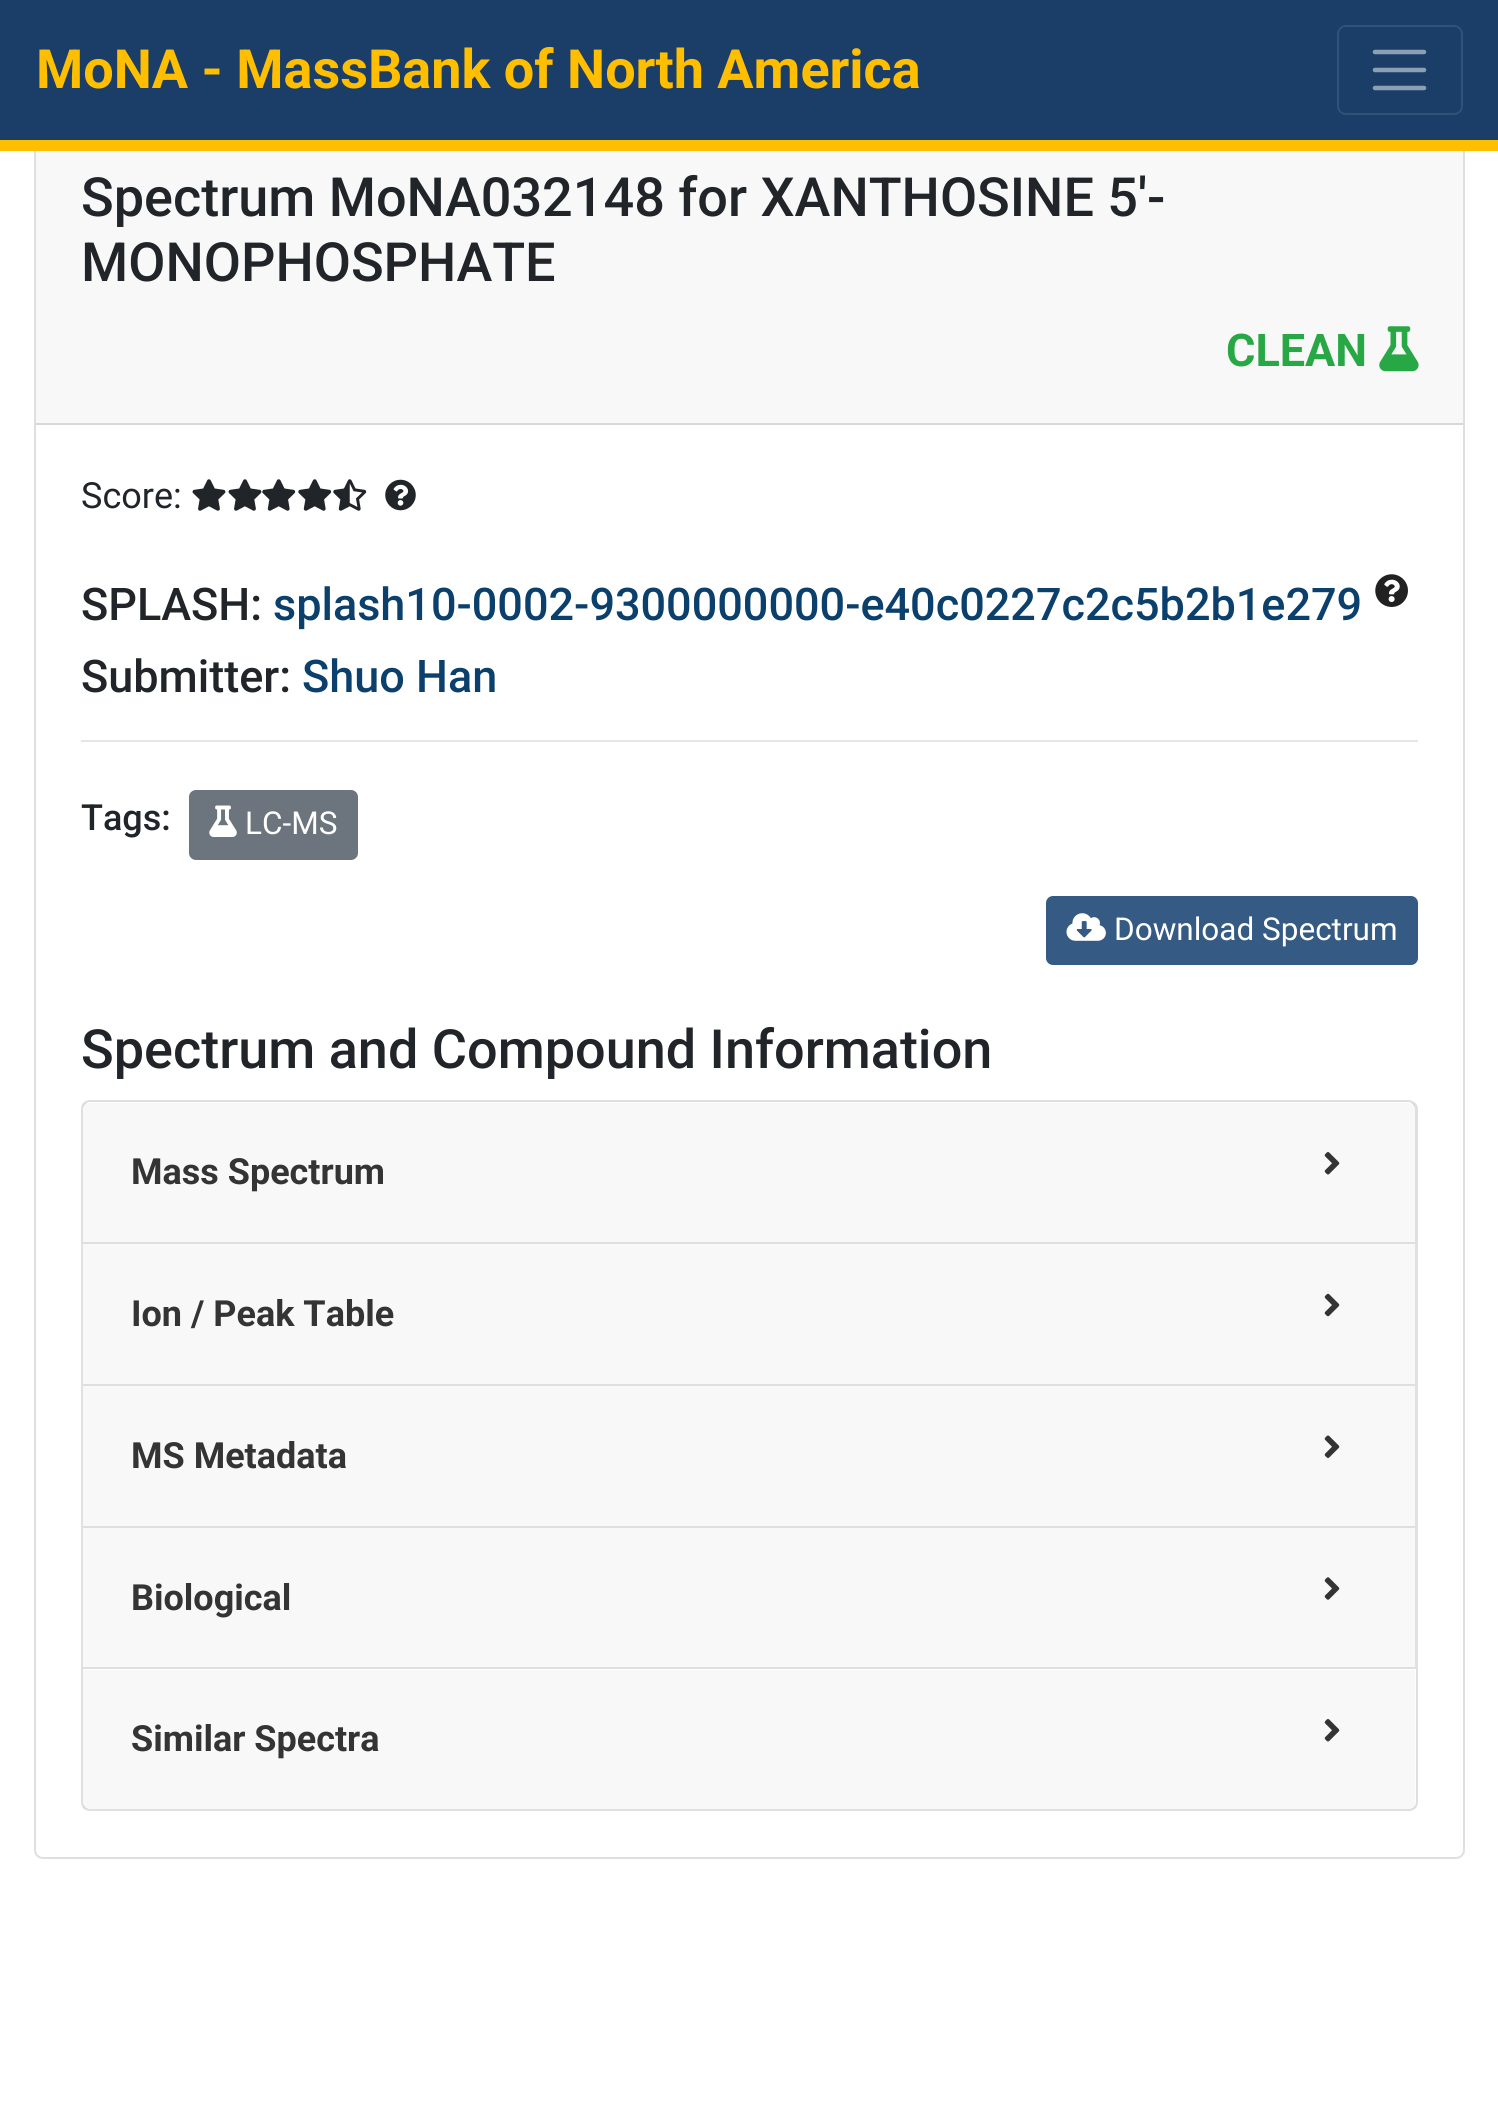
#include <cairo.h>
#include <math.h>
#include <stddef.h>


static void set_color(cairo_t *cr, unsigned color) {
    cairo_set_source_rgb(cr, (color >> 16) / 255.0, (color >> 8 & 255) / 255.0, (color & 255) / 255.0);
}

static void draw_text(cairo_t *cr, double x, double y, const char *s, const char *family, double size, int italic, int bold, unsigned color) {
    cairo_select_font_face(cr, family, italic ? CAIRO_FONT_SLANT_ITALIC : CAIRO_FONT_SLANT_NORMAL,
        bold ? CAIRO_FONT_WEIGHT_BOLD : CAIRO_FONT_WEIGHT_NORMAL);
    cairo_set_font_size(cr, size);
    set_color(cr, color);
    cairo_move_to(cr, x, y);
    cairo_show_text(cr, s);
}

static void fill_rect(cairo_t *cr, double x, double y, double w, double h, unsigned color) {
    set_color(cr, color);
    cairo_rectangle(cr, x, y, w, h);
    cairo_fill(cr);
}

static void rounded_rect(cairo_t *cr, double x, double y, double w, double h, double r) {
    cairo_new_sub_path(cr);
    cairo_arc(cr, x + w - r, y + h - r, r, 0, M_PI / 2);
    cairo_arc(cr, x + r, y + h - r, r, M_PI / 2, M_PI);
    cairo_arc(cr, x + r, y + r, r, M_PI, 1.5 * M_PI);
    cairo_arc(cr, x + w - r, y + r, r, 1.5 * M_PI, 2 * M_PI);
    cairo_close_path(cr);
}

static void draw_image(cairo_t *cr, const char *path, double x, double y, double w, double h) {
    cairo_surface_t *image = cairo_image_surface_create_from_png(path);
    cairo_save(cr);
    cairo_set_source_surface(cr, image, x, y);
    cairo_rectangle(cr, x, y, w, h);
    cairo_fill(cr);
    cairo_restore(cr);
    cairo_surface_destroy(image);
}

int main(void) {
    cairo_surface_t *surface = cairo_image_surface_create(CAIRO_FORMAT_RGB24, 1498, 2116);
    cairo_t *cr = cairo_create(surface);
    cairo_font_options_t *options = cairo_font_options_create();
    cairo_font_options_set_hint_metrics(options, CAIRO_HINT_METRICS_OFF);
    cairo_font_options_set_hint_style(options, CAIRO_HINT_STYLE_NONE);
    cairo_set_font_options(cr, options);
    cairo_set_miter_limit(cr, 4);
    set_color(cr, 0xFFFFFF);
    cairo_paint(cr);
    rounded_rect(cr, 35, 120, 1429, 1738, 8);
    set_color(cr, 0xDFDFDF);
    cairo_stroke(cr);
    fill_rect(cr, 0, 0, 1498, 140, 0x1A3E68);
    fill_rect(cr, 0, 140, 1498, 11, 0xFFBF00);
    draw_text(cr, 36, 88, "MoNA - MassBank of North America", "Roboto", 54, 0, 1, 0xFFBF00);
    rounded_rect(cr, 1338, 26, 124, 88, 8);
    set_color(cr, 0x315177);
    cairo_stroke(cr);
    cairo_new_path(cr);
    cairo_move_to(cr, 1375, 52);
    cairo_line_to(cr, 1424, 52);
    cairo_move_to(cr, 1375, 70);
    cairo_line_to(cr, 1424, 70);
    cairo_move_to(cr, 1375, 88);
    cairo_line_to(cr, 1424, 88);
    set_color(cr, 0x8D9FB4);
    cairo_set_line_width(cr, 4.5);
    cairo_set_line_cap(cr, CAIRO_LINE_CAP_ROUND);
    cairo_stroke(cr);
    cairo_set_source_rgba(cr, 0, 0, 0, 0.03);
    cairo_rectangle(cr, 36, 151, 1427, 272);
    cairo_fill(cr);
    fill_rect(cr, 36, 423, 1427, 2, 0xD8D8D8);
    draw_text(cr, 81, 216, "Spectrum MoNA032148 for XANTHOSINE 5'-", "Roboto Medium", 54, 0, 0, 0x212529);
    draw_text(cr, 81, 281, "MONOPHOSPHATE", "Roboto Medium", 54, 0, 0, 0x212529);
    draw_text(cr, 1226, 366, "CLEAN", "Roboto", 45, 0, 1, 0x28A745);
    draw_image(cr, "assets/img1.png", 1379, 326, 40, 46);
    draw_text(cr, 81, 508, "Score:", "Roboto", 36, 0, 0, 0x212529);
    draw_image(cr, "assets/img2.png", 192, 479, 34, 32);
    draw_image(cr, "assets/img2.png", 228, 479, 34, 32);
    draw_image(cr, "assets/img3.png", 262, 479, 34, 32);
    draw_image(cr, "assets/img3.png", 298, 479, 34, 32);
    draw_image(cr, "assets/img4.png", 333, 479, 34, 32);
    draw_image(cr, "assets/img5.png", 385, 479, 31, 32);
    draw_text(cr, 81, 620, "SPLASH:", "Roboto Medium", 45, 0, 0, 0x212529);
    draw_text(cr, 273, 620, "splash10-0002-9300000000-e40c0227c2c5b2b1e279", "Roboto Medium", 45, 0, 0, 0x0B3F6C);
    draw_image(cr, "assets/img6.png", 1375, 574, 33, 33);
    draw_text(cr, 81, 692, "Submitter:", "Roboto Medium", 45, 0, 0, 0x212529);
    draw_text(cr, 302, 692, "Shuo Han", "Roboto Medium", 45, 0, 0, 0x0B3F6C);
    fill_rect(cr, 81, 740, 1337, 2, 0xE6E6E6);
    draw_text(cr, 81, 830, "Tags:", "Roboto Medium", 36, 0, 0, 0x212529);
    set_color(cr, 0x6C757D);
    rounded_rect(cr, 190, 791, 167, 68, 6);
    cairo_fill_preserve(cr);
    cairo_set_line_width(cr, 2);
    cairo_set_line_cap(cr, CAIRO_LINE_CAP_BUTT);
    cairo_stroke(cr);
    draw_image(cr, "assets/img7.png", 209, 805, 28, 32);
    draw_text(cr, 245, 834, "LC-MS", "Roboto", 31.5, 0, 0, 0xFFFFFF);
    set_color(cr, 0x355B85);
    rounded_rect(cr, 1047, 897, 370, 67, 6);
    cairo_fill_preserve(cr);
    cairo_stroke(cr);
    draw_image(cr, "assets/img8.png", 1066, 913, 40, 28);
    draw_text(cr, 1114, 940, "Download Spectrum", "Roboto", 31.5, 0, 0, 0xFFFFFF);
    draw_text(cr, 81, 1068, "Spectrum and Compound Information", "Roboto Medium", 54, 0, 0, 0x212529);
    set_color(cr, 0xDFDFDF);
    cairo_set_fill_rule(cr, CAIRO_FILL_RULE_EVEN_ODD);
    cairo_new_path(cr);
    cairo_move_to(cr, 90, 1100);
    cairo_line_to(cr, 1408, 1100);
    cairo_curve_to(cr, 1413, 1100, 1418, 1104, 1418, 1109);
    cairo_line_to(cr, 1418, 1242);
    cairo_line_to(cr, 81, 1242);
    cairo_line_to(cr, 81, 1109);
    cairo_curve_to(cr, 81, 1104, 85, 1100, 90, 1100);
    cairo_close_path(cr);
    cairo_move_to(cr, 90, 1102);
    cairo_line_to(cr, 1408, 1102);
    cairo_curve_to(cr, 1412, 1102, 1415, 1106, 1415, 1109);
    cairo_line_to(cr, 1415, 1242);
    cairo_line_to(cr, 83, 1242);
    cairo_line_to(cr, 83, 1109);
    cairo_curve_to(cr, 83, 1106, 86, 1102, 90, 1102);
    cairo_close_path(cr);
    cairo_fill(cr);
    cairo_set_source_rgba(cr, 0, 0, 0, 0.03);
    cairo_rectangle(cr, 83, 1103, 1332, 139);
    cairo_fill(cr);
    draw_text(cr, 131, 1184, "Mass Spectrum", "Roboto", 36, 0, 1, 0x353434);
    draw_image(cr, "assets/img9.png", 1324, 1152, 16, 23);
    set_color(cr, 0xDFDFDF);
    cairo_set_fill_rule(cr, CAIRO_FILL_RULE_WINDING);
    cairo_new_path(cr);
    cairo_move_to(cr, 81, 1242);
    cairo_line_to(cr, 1418, 1242);
    cairo_line_to(cr, 1415, 1244);
    cairo_line_to(cr, 83, 1244);
    cairo_close_path(cr);
    cairo_fill(cr);
    cairo_set_source_rgba(cr, 0, 0, 0, 0.12);
    cairo_new_path(cr);
    cairo_move_to(cr, 1418, 1242);
    cairo_line_to(cr, 1418, 1384);
    cairo_line_to(cr, 1415, 1384);
    cairo_line_to(cr, 1415, 1244);
    cairo_close_path(cr);
    cairo_fill(cr);
    cairo_new_path(cr);
    cairo_move_to(cr, 81, 1384);
    cairo_line_to(cr, 81, 1242);
    cairo_line_to(cr, 83, 1244);
    cairo_line_to(cr, 83, 1384);
    cairo_close_path(cr);
    cairo_fill(cr);
    fill_rect(cr, 83, 1244, 1332, 140, 0xF8F8F8);
    draw_text(cr, 131, 1326, "Ion / Peak Table", "Roboto", 36, 0, 1, 0x353434);
    draw_image(cr, "assets/img10.png", 1324, 1293, 16, 24);
    set_color(cr, 0xDFDFDF);
    cairo_new_path(cr);
    cairo_move_to(cr, 81, 1384);
    cairo_line_to(cr, 1418, 1384);
    cairo_line_to(cr, 1415, 1386);
    cairo_line_to(cr, 83, 1386);
    cairo_close_path(cr);
    cairo_fill(cr);
    cairo_set_source_rgba(cr, 0, 0, 0, 0.12);
    cairo_new_path(cr);
    cairo_move_to(cr, 1418, 1384);
    cairo_line_to(cr, 1418, 1526);
    cairo_line_to(cr, 1415, 1526);
    cairo_line_to(cr, 1415, 1386);
    cairo_close_path(cr);
    cairo_fill(cr);
    cairo_new_path(cr);
    cairo_move_to(cr, 81, 1526);
    cairo_line_to(cr, 81, 1384);
    cairo_line_to(cr, 83, 1386);
    cairo_line_to(cr, 83, 1526);
    cairo_close_path(cr);
    cairo_fill(cr);
    fill_rect(cr, 83, 1386, 1332, 140, 0xF8F8F8);
    draw_text(cr, 131, 1468, "MS Metadata", "Roboto", 36, 0, 1, 0x353434);
    draw_image(cr, "assets/img11.png", 1324, 1435, 16, 23);
    set_color(cr, 0xDFDFDF);
    cairo_new_path(cr);
    cairo_move_to(cr, 81, 1526);
    cairo_line_to(cr, 1418, 1526);
    cairo_line_to(cr, 1415, 1528);
    cairo_line_to(cr, 83, 1528);
    cairo_close_path(cr);
    cairo_fill(cr);
    cairo_set_source_rgba(cr, 0, 0, 0, 0.12);
    cairo_new_path(cr);
    cairo_move_to(cr, 1418, 1526);
    cairo_line_to(cr, 1418, 1667);
    cairo_line_to(cr, 1415, 1667);
    cairo_line_to(cr, 1415, 1528);
    cairo_close_path(cr);
    cairo_fill(cr);
    cairo_new_path(cr);
    cairo_move_to(cr, 81, 1667);
    cairo_line_to(cr, 81, 1526);
    cairo_line_to(cr, 83, 1528);
    cairo_line_to(cr, 83, 1667);
    cairo_close_path(cr);
    cairo_fill(cr);
    fill_rect(cr, 83, 1528, 1332, 139, 0xF8F8F8);
    draw_text(cr, 131, 1610, "Biological", "Roboto", 36, 0, 1, 0x353434);
    draw_image(cr, "assets/img12.png", 1324, 1577, 16, 23);
    cairo_new_path(cr);
    cairo_move_to(cr, 82, 1668);
    cairo_line_to(cr, 1417, 1668);
    cairo_line_to(cr, 1417, 1802);
    cairo_curve_to(cr, 1417, 1806.5, 1413.5, 1810, 1409, 1810);
    cairo_line_to(cr, 90, 1810);
    cairo_curve_to(cr, 85.5, 1810, 82, 1806.5, 82, 1802);
    cairo_close_path(cr);
    set_color(cr, 0xDFDFDF);
    cairo_stroke(cr);
    cairo_set_source_rgba(cr, 0, 0, 0, 0.03);
    cairo_rectangle(cr, 83, 1670, 1332, 139);
    cairo_fill(cr);
    draw_text(cr, 131, 1751, "Similar Spectra", "Roboto", 36, 0, 1, 0x353434);
    draw_image(cr, "assets/img9.png", 1324, 1719, 16, 23);
    cairo_surface_write_to_png(surface, "output.png");
    cairo_font_options_destroy(options);
    cairo_destroy(cr);
    cairo_surface_destroy(surface);
    return 0;
}
